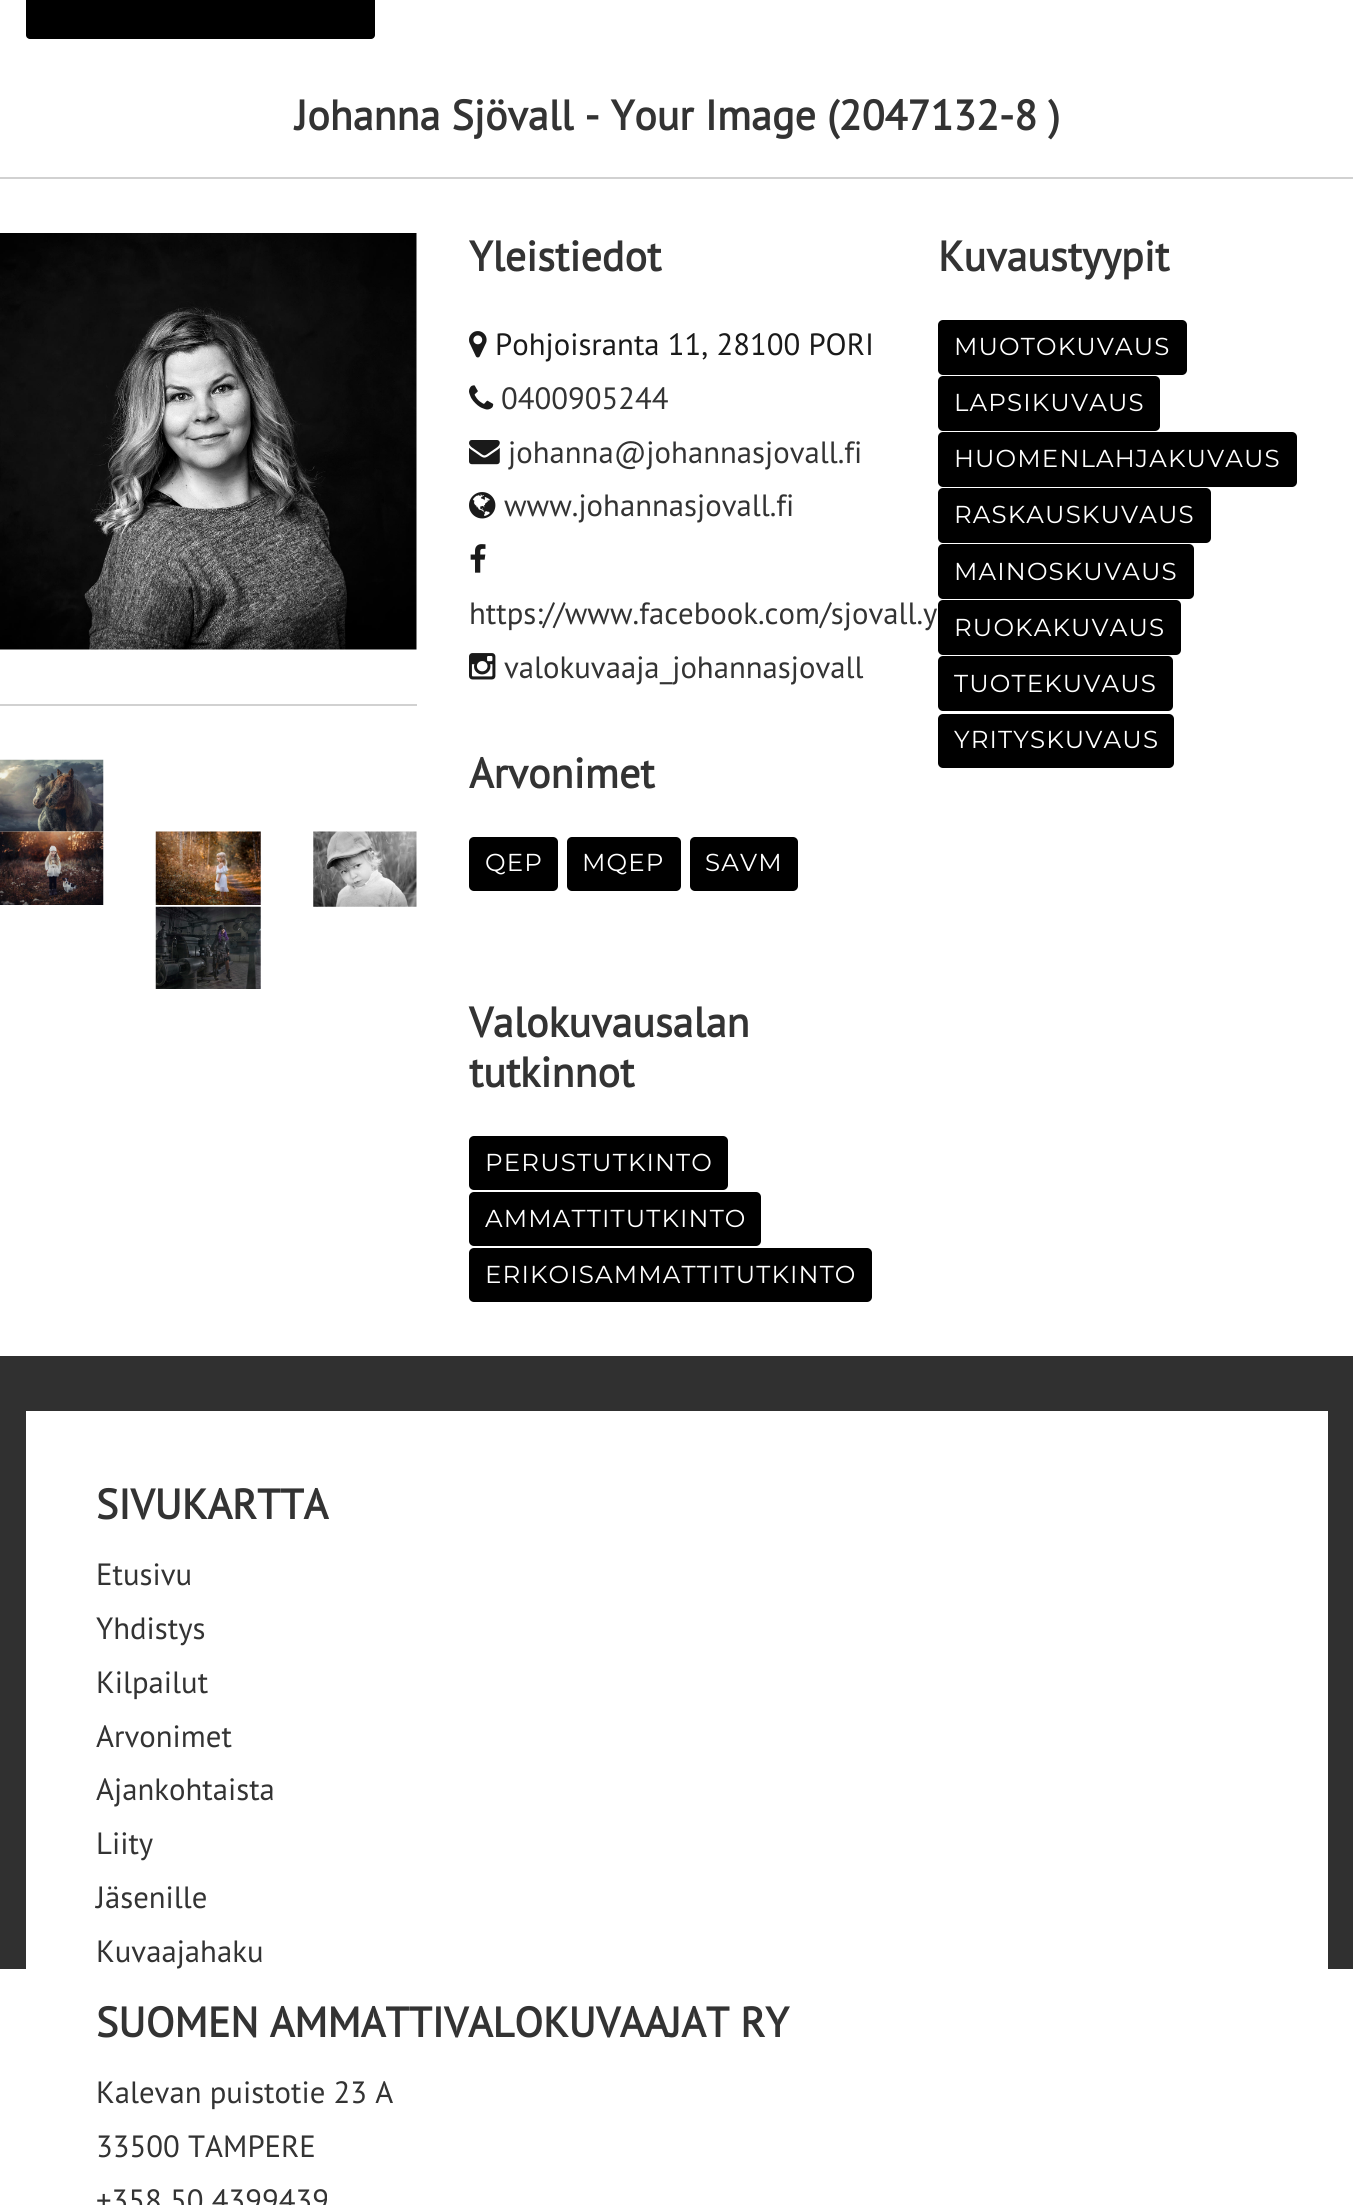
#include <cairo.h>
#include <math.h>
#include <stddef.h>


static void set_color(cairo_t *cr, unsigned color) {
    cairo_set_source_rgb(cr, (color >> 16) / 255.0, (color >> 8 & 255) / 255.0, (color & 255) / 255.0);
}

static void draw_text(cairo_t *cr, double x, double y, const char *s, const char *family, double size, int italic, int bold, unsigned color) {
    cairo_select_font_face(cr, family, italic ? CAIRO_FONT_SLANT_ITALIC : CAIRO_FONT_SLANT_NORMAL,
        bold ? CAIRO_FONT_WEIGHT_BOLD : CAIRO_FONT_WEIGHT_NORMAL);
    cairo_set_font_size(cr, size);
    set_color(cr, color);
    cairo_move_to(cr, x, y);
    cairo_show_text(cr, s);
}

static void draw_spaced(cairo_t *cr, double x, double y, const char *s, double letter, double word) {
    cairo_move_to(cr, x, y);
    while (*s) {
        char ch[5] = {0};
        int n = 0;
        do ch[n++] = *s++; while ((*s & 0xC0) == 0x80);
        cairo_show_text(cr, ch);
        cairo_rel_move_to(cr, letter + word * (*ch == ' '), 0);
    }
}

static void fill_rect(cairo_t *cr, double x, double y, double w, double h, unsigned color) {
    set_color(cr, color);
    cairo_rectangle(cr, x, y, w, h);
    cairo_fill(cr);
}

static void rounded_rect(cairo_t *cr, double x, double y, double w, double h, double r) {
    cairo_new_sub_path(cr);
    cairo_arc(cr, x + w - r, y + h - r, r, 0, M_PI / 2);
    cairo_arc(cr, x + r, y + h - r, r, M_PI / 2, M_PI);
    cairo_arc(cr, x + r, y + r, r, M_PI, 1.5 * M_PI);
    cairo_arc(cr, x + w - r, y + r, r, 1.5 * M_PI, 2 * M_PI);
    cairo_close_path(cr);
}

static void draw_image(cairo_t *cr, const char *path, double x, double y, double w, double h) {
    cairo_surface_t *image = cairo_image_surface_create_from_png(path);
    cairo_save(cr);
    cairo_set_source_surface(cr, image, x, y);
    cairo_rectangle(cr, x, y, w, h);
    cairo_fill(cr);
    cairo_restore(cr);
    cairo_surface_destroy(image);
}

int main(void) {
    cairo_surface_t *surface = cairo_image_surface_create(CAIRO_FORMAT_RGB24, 1353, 2205);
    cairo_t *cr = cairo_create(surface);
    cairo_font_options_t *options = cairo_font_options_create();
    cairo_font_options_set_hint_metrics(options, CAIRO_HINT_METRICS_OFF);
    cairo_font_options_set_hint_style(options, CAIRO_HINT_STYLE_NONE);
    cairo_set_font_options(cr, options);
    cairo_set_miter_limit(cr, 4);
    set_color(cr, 0xFFFFFF);
    cairo_paint(cr);
    set_color(cr, 0x000000);
    rounded_rect(cr, 26, -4, 349, 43, 4);
    cairo_fill(cr);
    draw_text(cr, 295, 130, "Johanna Sjövall - Your Image (2047132-8 )", "PT Sans", 42, 0, 1, 0x333333);
    fill_rect(cr, 0, 177, 1353, 2, 0xD1D1D1);
    draw_image(cr, "assets/img1.png", 0, 233, 417, 417);
    fill_rect(cr, 0, 704, 417, 2, 0xD1D1D1);
    draw_image(cr, "assets/img2.png", 0, 759, 104, 73);
    draw_image(cr, "assets/img3.png", 0, 831, 104, 74);
    draw_image(cr, "assets/img4.png", 155, 831, 106, 74);
    draw_image(cr, "assets/img5.png", 313, 831, 104, 76);
    draw_image(cr, "assets/img6.png", 155, 906, 106, 83);
    draw_text(cr, 469, 271, "Yleistiedot", "PT Sans", 42, 0, 1, 0x333333);
    draw_image(cr, "assets/img7.png", 469, 331, 18, 27);
    draw_text(cr, 495, 355, "Pohjoisranta 11, 28100 PORI", "PT Sans", 30.75, 0, 0, 0x1A1A1A);
    draw_image(cr, "assets/img8.png", 469, 385, 25, 25);
    draw_text(cr, 501, 409, "0400905244", "PT Sans", 30.75, 0, 0, 0x333333);
    draw_image(cr, "assets/img9.png", 469, 440, 31, 25);
    draw_text(cr, 508, 463, "johanna@johannasjovall.fi", "PT Sans", 30.75, 0, 0, 0x333333);
    draw_image(cr, "assets/img10.png", 469, 492, 27, 27);
    draw_text(cr, 504, 516, "www.johannasjovall.fi", "PT Sans", 30.75, 0, 0, 0x333333);
    draw_image(cr, "assets/img11.png", 470, 544, 16, 29);
    draw_text(cr, 469, 624, "https://www.facebook.com/sjovall.y", "PT Sans", 30.75, 0, 0, 0x333333);
    draw_image(cr, "assets/img12.png", 469, 653, 27, 27);
    draw_text(cr, 504, 678, "valokuvaaja_johannasjovall", "PT Sans", 30.75, 0, 0, 0x333333);
    draw_text(cr, 469, 788, "Arvonimet", "PT Sans", 42, 0, 1, 0x333333);
    set_color(cr, 0x000000);
    rounded_rect(cr, 469, 837, 89, 54, 5);
    cairo_fill(cr);
    cairo_select_font_face(cr, "Montserrat", CAIRO_FONT_SLANT_NORMAL, CAIRO_FONT_WEIGHT_NORMAL);
    cairo_set_font_size(cr, 24.5);
    set_color(cr, 0xFFFFFF);
    draw_spaced(cr, 485, 871, "QEP", 1.15, 0);
    set_color(cr, 0x000000);
    rounded_rect(cr, 567, 837, 114, 54, 5);
    cairo_fill(cr);
    set_color(cr, 0xFFFFFF);
    draw_spaced(cr, 582, 871, "MQEP", 1.15, 0);
    set_color(cr, 0x000000);
    rounded_rect(cr, 690, 837, 108, 54, 5);
    cairo_fill(cr);
    set_color(cr, 0xFFFFFF);
    draw_spaced(cr, 705, 871, "SAVM", 1.15, 0);
    draw_text(cr, 469, 1037, "Valokuvausalan", "PT Sans", 42, 0, 1, 0x333333);
    draw_text(cr, 469, 1087, "tutkinnot", "PT Sans", 42, 0, 1, 0x333333);
    set_color(cr, 0x000000);
    rounded_rect(cr, 469, 1136, 259, 54, 5);
    cairo_fill(cr);
    cairo_select_font_face(cr, "Montserrat", CAIRO_FONT_SLANT_NORMAL, CAIRO_FONT_WEIGHT_NORMAL);
    cairo_set_font_size(cr, 24.5);
    set_color(cr, 0xFFFFFF);
    draw_spaced(cr, 485, 1171, "PERUSTUTKINTO", 1.15, 0);
    set_color(cr, 0x000000);
    rounded_rect(cr, 469, 1192, 292, 54, 5);
    cairo_fill(cr);
    set_color(cr, 0xFFFFFF);
    draw_spaced(cr, 485, 1227, "AMMATTITUTKINTO", 1.15, 0);
    set_color(cr, 0x000000);
    rounded_rect(cr, 469, 1248, 403, 54, 5);
    cairo_fill(cr);
    set_color(cr, 0xFFFFFF);
    draw_spaced(cr, 485, 1283, "ERIKOISAMMATTITUTKINTO", 1.15, 0);
    draw_text(cr, 938, 271, "Kuvaustyypit", "PT Sans", 42, 0, 1, 0x333333);
    set_color(cr, 0x000000);
    rounded_rect(cr, 938, 320, 249, 55, 5);
    cairo_fill(cr);
    cairo_select_font_face(cr, "Montserrat", CAIRO_FONT_SLANT_NORMAL, CAIRO_FONT_WEIGHT_NORMAL);
    cairo_set_font_size(cr, 24.5);
    set_color(cr, 0xFFFFFF);
    draw_spaced(cr, 954, 355, "MUOTOKUVAUS", 1.15, 0);
    set_color(cr, 0x000000);
    rounded_rect(cr, 938, 376, 222, 55, 5);
    cairo_fill(cr);
    set_color(cr, 0xFFFFFF);
    draw_spaced(cr, 954, 411, "LAPSIKUVAUS", 1.15, 0);
    set_color(cr, 0x000000);
    rounded_rect(cr, 938, 432, 359, 55, 5);
    cairo_fill(cr);
    set_color(cr, 0xFFFFFF);
    draw_spaced(cr, 954, 467, "HUOMENLAHJAKUVAUS", 1.15, 0);
    set_color(cr, 0x000000);
    rounded_rect(cr, 938, 488, 273, 55, 5);
    cairo_fill(cr);
    set_color(cr, 0xFFFFFF);
    draw_spaced(cr, 954, 523, "RASKAUSKUVAUS", 1.15, 0);
    set_color(cr, 0x000000);
    rounded_rect(cr, 938, 544, 256, 55, 5);
    cairo_fill(cr);
    set_color(cr, 0xFFFFFF);
    draw_spaced(cr, 954, 580, "MAINOSKUVAUS", 1.15, 0);
    set_color(cr, 0x000000);
    rounded_rect(cr, 938, 600, 243, 55, 5);
    cairo_fill(cr);
    set_color(cr, 0xFFFFFF);
    draw_spaced(cr, 954, 636, "RUOKAKUVAUS", 1.15, 0);
    set_color(cr, 0x000000);
    rounded_rect(cr, 938, 656, 235, 55, 5);
    cairo_fill(cr);
    set_color(cr, 0xFFFFFF);
    draw_spaced(cr, 954, 692, "TUOTEKUVAUS", 1.15, 0);
    set_color(cr, 0x000000);
    rounded_rect(cr, 938, 714, 236, 54, 5);
    cairo_fill(cr);
    set_color(cr, 0xFFFFFF);
    draw_spaced(cr, 954, 748, "YRITYSKUVAUS", 1.15, 0);
    fill_rect(cr, 0, 1356, 1353, 613, 0x303030);
    fill_rect(cr, 26, 1411, 1302, 558, 0xFFFFFF);
    draw_text(cr, 96, 1519, "SIVUKARTTA", "PT Sans", 42, 0, 1, 0x333333);
    draw_text(cr, 96, 1585, "Etusivu", "PT Sans", 30.75, 0, 0, 0x333333);
    draw_text(cr, 96, 1639, "Yhdistys", "PT Sans", 30.75, 0, 0, 0x333333);
    draw_text(cr, 96, 1693, "Kilpailut", "PT Sans", 30.75, 0, 0, 0x333333);
    draw_text(cr, 96, 1747, "Arvonimet", "PT Sans", 30.75, 0, 0, 0x333333);
    draw_text(cr, 96, 1800, "Ajankohtaista", "PT Sans", 30.75, 0, 0, 0x333333);
    draw_text(cr, 96, 1854, "Liity", "PT Sans", 30.75, 0, 0, 0x333333);
    draw_text(cr, 96, 1908, "Jäsenille", "PT Sans", 30.75, 0, 0, 0x333333);
    draw_text(cr, 96, 1962, "Kuvaajahaku", "PT Sans", 30.75, 0, 0, 0x333333);
    draw_text(cr, 96, 2037, "SUOMEN AMMATTIVALOKUVAAJAT RY", "PT Sans", 42, 0, 1, 0x333333);
    draw_text(cr, 96, 2103, "Kalevan puistotie 23 A", "PT Sans", 30.75, 0, 0, 0x333333);
    draw_text(cr, 96, 2157, "33500 TAMPERE", "PT Sans", 30.75, 0, 0, 0x333333);
    draw_text(cr, 96, 2211, "+358 50 4399439", "PT Sans", 30.75, 0, 0, 0x333333);
    cairo_surface_write_to_png(surface, "output.png");
    cairo_font_options_destroy(options);
    cairo_destroy(cr);
    cairo_surface_destroy(surface);
    return 0;
}
